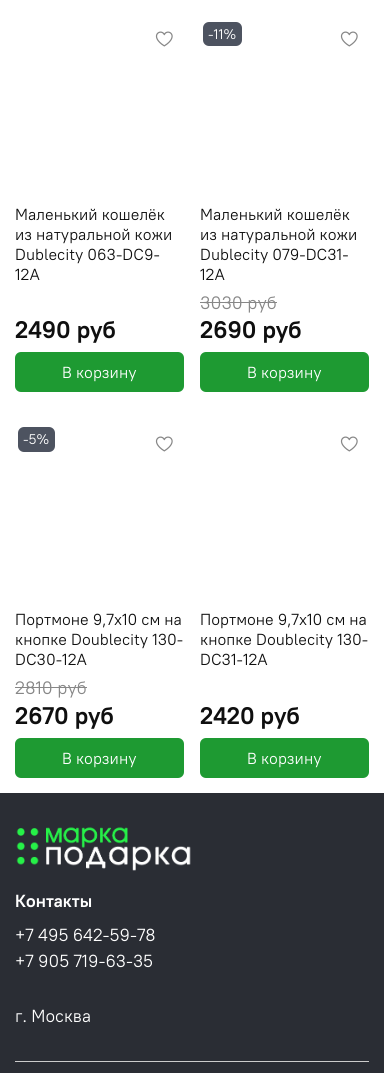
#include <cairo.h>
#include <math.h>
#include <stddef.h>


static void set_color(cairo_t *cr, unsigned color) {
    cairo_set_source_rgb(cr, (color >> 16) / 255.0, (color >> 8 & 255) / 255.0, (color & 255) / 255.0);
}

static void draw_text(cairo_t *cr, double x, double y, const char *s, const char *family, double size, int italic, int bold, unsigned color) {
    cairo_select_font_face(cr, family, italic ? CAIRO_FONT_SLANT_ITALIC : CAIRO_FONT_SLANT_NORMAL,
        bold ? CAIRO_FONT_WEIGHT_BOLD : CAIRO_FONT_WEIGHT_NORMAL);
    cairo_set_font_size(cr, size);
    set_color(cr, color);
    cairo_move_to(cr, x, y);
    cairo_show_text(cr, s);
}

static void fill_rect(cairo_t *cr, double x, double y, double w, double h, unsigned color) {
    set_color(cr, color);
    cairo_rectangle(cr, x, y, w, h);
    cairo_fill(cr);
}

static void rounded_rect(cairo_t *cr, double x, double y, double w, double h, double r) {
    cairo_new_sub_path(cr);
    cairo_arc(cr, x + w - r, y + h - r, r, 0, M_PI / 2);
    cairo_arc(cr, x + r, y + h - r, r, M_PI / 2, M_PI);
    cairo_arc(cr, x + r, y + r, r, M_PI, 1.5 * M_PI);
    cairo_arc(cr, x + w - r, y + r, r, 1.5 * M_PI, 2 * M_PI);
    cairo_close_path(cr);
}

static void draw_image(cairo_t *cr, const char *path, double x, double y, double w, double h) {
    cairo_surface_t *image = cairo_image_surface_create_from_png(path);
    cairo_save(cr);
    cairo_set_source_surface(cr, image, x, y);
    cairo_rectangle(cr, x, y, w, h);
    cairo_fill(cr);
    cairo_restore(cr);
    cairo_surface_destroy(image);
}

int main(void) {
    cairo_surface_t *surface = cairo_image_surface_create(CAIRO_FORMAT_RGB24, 384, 1073);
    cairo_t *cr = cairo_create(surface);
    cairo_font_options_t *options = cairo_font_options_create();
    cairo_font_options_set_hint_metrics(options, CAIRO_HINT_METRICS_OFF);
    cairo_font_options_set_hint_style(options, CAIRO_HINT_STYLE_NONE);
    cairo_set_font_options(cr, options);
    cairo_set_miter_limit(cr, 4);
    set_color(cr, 0xFFFFFF);
    cairo_paint(cr);
    draw_image(cr, "assets/img1.png", 155, 31, 18, 16);
    draw_text(cr, 15, 220, "Маленький кошелёк", "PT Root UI", 16, 0, 0, 0x0F0F0F);
    draw_text(cr, 15, 240, "из натуральной кожи", "PT Root UI", 16, 0, 0, 0x0F0F0F);
    draw_text(cr, 15, 260, "Dublecity 063-DC9-", "PT Root UI", 16, 0, 0, 0x0F0F0F);
    draw_text(cr, 15, 280, "12A", "PT Root UI", 16, 0, 0, 0x0F0F0F);
    draw_text(cr, 15, 338, "2490 руб", "PT Root UI", 24, 0, 1, 0x0F0F0F);
    set_color(cr, 0x1E9A32);
    rounded_rect(cr, 15, 352, 169, 40, 6);
    cairo_fill(cr);
    draw_text(cr, 62, 378, "В корзину", "PT Root UI", 16, 0, 0, 0xFFFFFF);
    set_color(cr, 0x4D5360);
    rounded_rect(cr, 203, 22, 39, 24, 6);
    cairo_fill(cr);
    draw_text(cr, 208, 39, "-11%", "PT Root UI", 14, 0, 0, 0xFFFFFF);
    draw_image(cr, "assets/img1.png", 340, 31, 18, 16);
    draw_text(cr, 200, 220, "Маленький кошелёк", "PT Root UI", 16, 0, 0, 0x0F0F0F);
    draw_text(cr, 200, 240, "из натуральной кожи", "PT Root UI", 16, 0, 0, 0x0F0F0F);
    draw_text(cr, 200, 260, "Dublecity 079-DC31-", "PT Root UI", 16, 0, 0, 0x0F0F0F);
    draw_text(cr, 200, 280, "12A", "PT Root UI", 16, 0, 0, 0x0F0F0F);
    draw_text(cr, 200, 309, "3030 руб", "PT Root UI", 18, 0, 0, 0x878787);
    fill_rect(cr, 200, 302, 77, 1, 0x878787);
    draw_text(cr, 200, 338, "2690 руб", "PT Root UI", 24, 0, 1, 0x0F0F0F);
    set_color(cr, 0x1E9A32);
    rounded_rect(cr, 200, 352, 169, 40, 6);
    cairo_fill(cr);
    draw_text(cr, 247, 378, "В корзину", "PT Root UI", 16, 0, 0, 0xFFFFFF);
    set_color(cr, 0x4D5360);
    rounded_rect(cr, 18, 427, 37, 25, 6);
    cairo_fill(cr);
    draw_text(cr, 23, 444, "-5%", "PT Root UI", 14, 0, 0, 0xFFFFFF);
    draw_image(cr, "assets/img1.png", 155, 436, 18, 16);
    draw_text(cr, 15, 625, "Портмоне 9,7х10 см на", "PT Root UI", 16, 0, 0, 0x0F0F0F);
    draw_text(cr, 15, 645, "кнопке Doublecity 130-", "PT Root UI", 16, 0, 0, 0x0F0F0F);
    draw_text(cr, 15, 665, "DC30-12A", "PT Root UI", 16, 0, 0, 0x0F0F0F);
    draw_text(cr, 15, 694, "2810 руб", "PT Root UI", 18, 0, 0, 0x878787);
    fill_rect(cr, 15, 687, 72, 1, 0x878787);
    draw_text(cr, 15, 724, "2670 руб", "PT Root UI", 24, 0, 1, 0x0F0F0F);
    set_color(cr, 0x1E9A32);
    rounded_rect(cr, 15, 738, 169, 40, 6);
    cairo_fill(cr);
    draw_text(cr, 62, 764, "В корзину", "PT Root UI", 16, 0, 0, 0xFFFFFF);
    draw_image(cr, "assets/img1.png", 340, 436, 18, 16);
    draw_text(cr, 200, 625, "Портмоне 9,7х10 см на", "PT Root UI", 16, 0, 0, 0x0F0F0F);
    draw_text(cr, 200, 645, "кнопке Doublecity 130-", "PT Root UI", 16, 0, 0, 0x0F0F0F);
    draw_text(cr, 200, 665, "DC31-12A", "PT Root UI", 16, 0, 0, 0x0F0F0F);
    draw_text(cr, 200, 724, "2420 руб", "PT Root UI", 24, 0, 1, 0x0F0F0F);
    set_color(cr, 0x1E9A32);
    rounded_rect(cr, 200, 738, 169, 40, 6);
    cairo_fill(cr);
    draw_text(cr, 247, 764, "В корзину", "PT Root UI", 16, 0, 0, 0xFFFFFF);
    fill_rect(cr, 0, 793, 384, 280, 0x2A2D34);
    draw_image(cr, "assets/img2.png", 16, 827, 175, 44);
    draw_text(cr, 15, 907, "Контакты", "PT Root UI", 17.5, 0, 1, 0xFFFFFF);
    draw_text(cr, 15, 941, "+7 495 642-59-78", "PT Root UI", 17.5, 0, 0, 0xFFFFFF);
    draw_text(cr, 15, 967, "+7 905 719-63-35", "PT Root UI", 17.5, 0, 0, 0xFFFFFF);
    draw_text(cr, 15, 1022, "г. Москва", "PT Root UI", 17.5, 0, 0, 0xFFFFFF);
    fill_rect(cr, 15, 1061, 354, 1, 0xCCCCCC);
    cairo_surface_write_to_png(surface, "output.png");
    cairo_font_options_destroy(options);
    cairo_destroy(cr);
    cairo_surface_destroy(surface);
    return 0;
}
